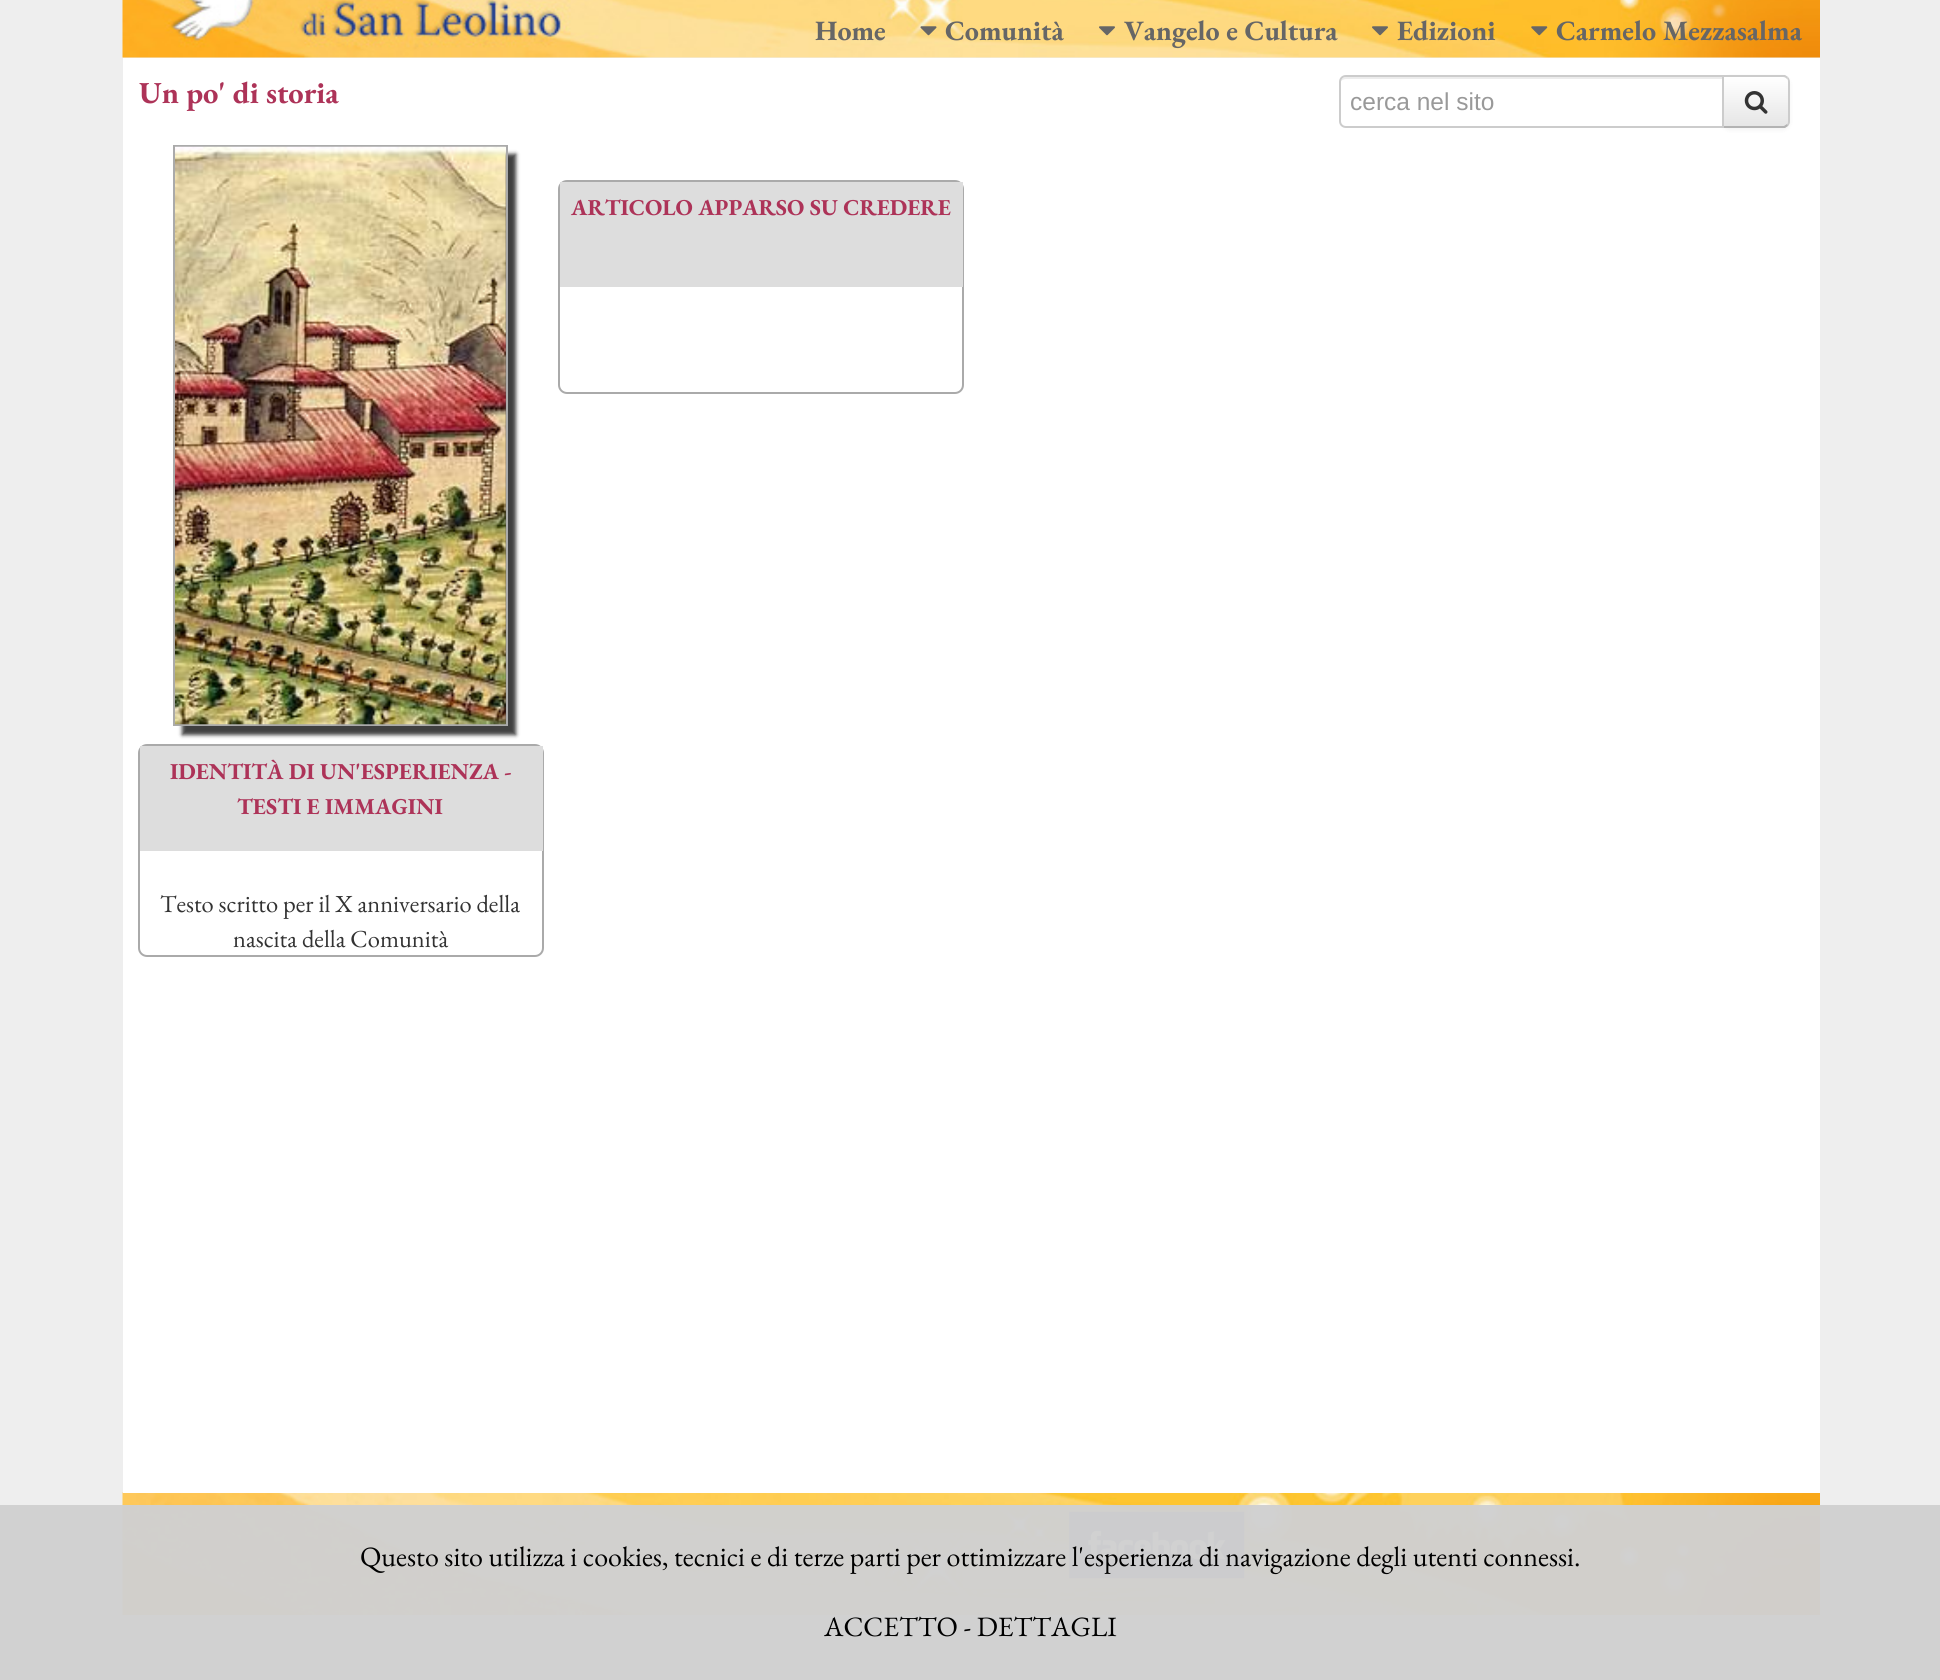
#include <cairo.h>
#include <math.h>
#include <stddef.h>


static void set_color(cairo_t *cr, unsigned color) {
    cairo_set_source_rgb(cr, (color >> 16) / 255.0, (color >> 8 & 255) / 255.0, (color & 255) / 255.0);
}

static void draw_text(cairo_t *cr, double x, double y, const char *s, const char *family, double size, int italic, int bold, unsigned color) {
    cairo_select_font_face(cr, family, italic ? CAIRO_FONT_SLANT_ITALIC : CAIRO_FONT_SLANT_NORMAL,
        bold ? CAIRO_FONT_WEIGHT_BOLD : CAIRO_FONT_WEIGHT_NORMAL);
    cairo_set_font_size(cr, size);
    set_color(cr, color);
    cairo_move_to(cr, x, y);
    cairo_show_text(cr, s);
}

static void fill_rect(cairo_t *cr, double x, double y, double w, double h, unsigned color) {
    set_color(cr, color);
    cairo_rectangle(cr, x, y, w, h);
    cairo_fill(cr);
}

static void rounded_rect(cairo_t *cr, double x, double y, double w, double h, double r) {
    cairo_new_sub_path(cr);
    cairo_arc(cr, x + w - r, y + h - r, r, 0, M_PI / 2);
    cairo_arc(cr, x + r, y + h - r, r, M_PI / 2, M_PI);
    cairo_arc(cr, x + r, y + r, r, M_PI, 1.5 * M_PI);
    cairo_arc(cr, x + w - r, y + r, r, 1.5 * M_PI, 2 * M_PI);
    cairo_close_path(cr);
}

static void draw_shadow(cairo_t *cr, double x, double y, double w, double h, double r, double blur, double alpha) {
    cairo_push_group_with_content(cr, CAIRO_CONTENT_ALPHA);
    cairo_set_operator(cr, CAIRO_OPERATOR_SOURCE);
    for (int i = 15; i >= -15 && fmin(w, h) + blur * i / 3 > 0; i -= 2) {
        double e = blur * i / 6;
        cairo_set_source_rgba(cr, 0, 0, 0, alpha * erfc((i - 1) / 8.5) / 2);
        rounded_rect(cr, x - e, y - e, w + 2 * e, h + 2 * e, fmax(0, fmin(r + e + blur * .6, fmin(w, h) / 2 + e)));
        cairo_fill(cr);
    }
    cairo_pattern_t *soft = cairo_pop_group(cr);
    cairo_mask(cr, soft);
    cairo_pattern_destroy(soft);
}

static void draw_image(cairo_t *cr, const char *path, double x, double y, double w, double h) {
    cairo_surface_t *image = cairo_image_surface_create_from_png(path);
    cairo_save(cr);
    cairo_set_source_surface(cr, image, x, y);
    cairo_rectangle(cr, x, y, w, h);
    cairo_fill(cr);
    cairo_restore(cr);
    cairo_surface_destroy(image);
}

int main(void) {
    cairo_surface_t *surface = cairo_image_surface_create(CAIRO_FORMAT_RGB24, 1940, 1680);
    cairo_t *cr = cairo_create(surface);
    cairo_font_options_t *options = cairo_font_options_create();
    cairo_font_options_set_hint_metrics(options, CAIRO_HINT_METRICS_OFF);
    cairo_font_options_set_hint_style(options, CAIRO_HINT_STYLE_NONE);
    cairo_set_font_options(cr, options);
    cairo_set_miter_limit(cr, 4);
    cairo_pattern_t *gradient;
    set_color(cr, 0xFFFFFF);
    cairo_paint(cr);
    fill_rect(cr, 0, 0, 1940, 1615, 0xEEEEEE);
    draw_image(cr, "assets/img1.png", 122, 0, 1698, 58);
    draw_text(cr, 815, 40, "Home", "EB Garamond", 28, 0, 1, 0x666666);
    draw_image(cr, "assets/img2.png", 920, 26, 17, 10);
    draw_text(cr, 945, 40, "Comunità", "EB Garamond", 28, 0, 1, 0x666666);
    draw_image(cr, "assets/img3.png", 1099, 26, 16, 10);
    draw_text(cr, 1124, 40, "Vangelo e Cultura", "EB Garamond", 28, 0, 1, 0x666666);
    draw_image(cr, "assets/img4.png", 1372, 26, 16, 10);
    draw_text(cr, 1397, 40, "Edizioni", "EB Garamond", 28, 0, 1, 0x666666);
    draw_image(cr, "assets/img5.png", 1531, 26, 17, 10);
    draw_text(cr, 1556, 40, "Carmelo Mezzasalma", "EB Garamond", 28, 0, 1, 0x666666);
    draw_image(cr, "assets/img8.png", 122, 1492, 1698, 123);
    fill_rect(cr, 123, 58, 1697, 1435, 0xFFFFFF);
    draw_text(cr, 139, 103, "Un po' di storia", "EB Garamond", 30.5, 0, 1, 0xAD3358);
    set_color(cr, 0x000000);
    draw_shadow(cr, 1722, 77, 68, 53, 7, 2, 0.05);
    cairo_save(cr);
    cairo_new_path(cr);
    cairo_move_to(cr, 1722, 75);
    cairo_line_to(cr, 1783, 75);
    cairo_curve_to(cr, 1787, 75, 1790, 78, 1790, 82);
    cairo_line_to(cr, 1790, 121);
    cairo_curve_to(cr, 1790, 125, 1787, 128, 1783, 128);
    cairo_line_to(cr, 1722, 128);
    cairo_close_path(cr);
    cairo_clip(cr);
    gradient = cairo_pattern_create_linear(1756, 77, 1756, 126);
    cairo_pattern_add_color_stop_rgba(gradient, 0, 1, 1, 1, 1);
    cairo_pattern_add_color_stop_rgba(gradient, 1, 0.902, 0.902, 0.902, 1);
    cairo_set_source(cr, gradient);
    cairo_pattern_destroy(gradient);
    cairo_rectangle(cr, 1724, 77, 66, 49);
    cairo_fill(cr);
    cairo_restore(cr);
    cairo_set_source_rgba(cr, 1, 1, 1, 0.2);
    cairo_new_path(cr);
    cairo_move_to(cr, 1724, 79);
    cairo_line_to(cr, 1783, 79);
    cairo_curve_to(cr, 1786, 79, 1788, 81, 1788, 84);
    cairo_line_to(cr, 1788, 122);
    cairo_line_to(cr, 1788, 125);
    cairo_curve_to(cr, 1788, 124, 1789, 122, 1789, 121);
    cairo_line_to(cr, 1789, 82);
    cairo_curve_to(cr, 1789, 79, 1787, 77, 1784, 77);
    cairo_line_to(cr, 1724, 77);
    cairo_close_path(cr);
    cairo_fill(cr);
    set_color(cr, 0xCCCCCC);
    cairo_new_path(cr);
    cairo_move_to(cr, 1724, 77);
    cairo_line_to(cr, 1722, 75);
    cairo_line_to(cr, 1785, 75);
    cairo_line_to(cr, 1788, 77);
    cairo_line_to(cr, 1787, 79);
    cairo_curve_to(cr, 1786, 78, 1785, 77, 1783, 77);
    cairo_close_path(cr);
    cairo_fill(cr);
    cairo_new_path(cr);
    cairo_move_to(cr, 1788, 77);
    cairo_curve_to(cr, 1789, 78, 1790, 80, 1790, 82);
    cairo_line_to(cr, 1790, 121);
    cairo_curve_to(cr, 1790, 123, 1789, 125, 1788, 126);
    cairo_line_to(cr, 1787, 124);
    cairo_curve_to(cr, 1788, 124, 1788, 122, 1788, 121);
    cairo_line_to(cr, 1788, 82);
    cairo_curve_to(cr, 1788, 81, 1788, 79, 1787, 79);
    cairo_close_path(cr);
    cairo_fill(cr);
    set_color(cr, 0xB3B3B3);
    cairo_new_path(cr);
    cairo_move_to(cr, 1785, 128);
    cairo_line_to(cr, 1722, 128);
    cairo_line_to(cr, 1724, 126);
    cairo_line_to(cr, 1784, 126);
    cairo_line_to(cr, 1787, 124);
    cairo_line_to(cr, 1788, 126);
    cairo_close_path(cr);
    cairo_fill(cr);
    set_color(cr, 0xFFFFFF);
    cairo_new_path(cr);
    cairo_move_to(cr, 1346, 75);
    cairo_line_to(cr, 1724, 75);
    cairo_line_to(cr, 1724, 128);
    cairo_line_to(cr, 1346, 128);
    cairo_curve_to(cr, 1342, 128, 1339, 125, 1339, 121);
    cairo_line_to(cr, 1339, 82);
    cairo_curve_to(cr, 1339, 78, 1342, 75, 1346, 75);
    cairo_close_path(cr);
    cairo_fill(cr);
    set_color(cr, 0xECECEC);
    cairo_new_path(cr);
    cairo_move_to(cr, 1346, 79);
    cairo_line_to(cr, 1722, 79);
    cairo_line_to(cr, 1722, 77);
    cairo_line_to(cr, 1346, 77);
    cairo_curve_to(cr, 1344, 77, 1341, 79, 1341, 81);
    cairo_curve_to(cr, 1342, 80, 1344, 79, 1346, 79);
    cairo_close_path(cr);
    cairo_fill(cr);
    cairo_new_path(cr);
    cairo_move_to(cr, 1346, 76);
    cairo_line_to(cr, 1723, 76);
    cairo_line_to(cr, 1723, 127);
    cairo_line_to(cr, 1346, 127);
    cairo_curve_to(cr, 1342.5, 127, 1340, 124.5, 1340, 121);
    cairo_line_to(cr, 1340, 82);
    cairo_curve_to(cr, 1340, 78.5, 1342.5, 76, 1346, 76);
    cairo_close_path(cr);
    set_color(cr, 0xCCCCCC);
    cairo_stroke(cr);
    draw_text(cr, 1350, 110, "cerca nel sito", "Liberation Sans", 24.5, 0, 0, 0x999999);
    draw_image(cr, "assets/img6.png", 1744, 91, 24, 23);
    rounded_rect(cr, 559, 181, 404, 212, 8);
    set_color(cr, 0xAAAAAA);
    cairo_stroke(cr);
    fill_rect(cr, 560, 182, 403, 105, 0xDDDDDD);
    draw_text(cr, 571, 215, "ARTICOLO APPARSO SU CREDERE", "EB Garamond", 22.75, 0, 1, 0xAD3358);
    set_color(cr, 0x000000);
    draw_shadow(cr, 182, 154, 334, 581, 0, 2, 0.75);
    cairo_rectangle(cr, 174, 146, 333, 579);
    set_color(cr, 0xAAAAAA);
    cairo_stroke(cr);
    draw_image(cr, "assets/img7.png", 175, 146, 331, 579);
    rounded_rect(cr, 139, 745, 404, 211, 8);
    cairo_stroke(cr);
    fill_rect(cr, 140, 746, 403, 105, 0xDDDDDD);
    draw_text(cr, 170, 779, "IDENTITÀ DI UN'ESPERIENZA -", "EB Garamond", 22.75, 0, 1, 0xAD3358);
    draw_text(cr, 237, 814, "TESTI E IMMAGINI", "EB Garamond", 22.75, 0, 1, 0xAD3358);
    draw_text(cr, 160, 912, "Testo scritto per il X anniversario della", "EB Garamond", 24.5, 0, 0, 0x333333);
    draw_text(cr, 233, 947, "nascita della Comunità", "EB Garamond", 24.5, 0, 0, 0x333333);
    draw_image(cr, "assets/img9.png", 1069, 1511, 176, 68);
    cairo_set_source_rgba(cr, 0.816, 0.816, 0.816, 0.97);
    cairo_rectangle(cr, 0, 1505, 1940, 175);
    cairo_fill(cr);
    draw_text(cr, 360, 1566, "Questo sito utilizza i cookies, tecnici e di terze parti per ottimizzare l'esperienza di navigazione degli utenti connessi.", "EB Garamond", 28, 0, 0, 0x000000);
    draw_text(cr, 824, 1636, "ACCETTO - DETTAGLI", "EB Garamond", 28, 0, 0, 0x000000);
    cairo_surface_write_to_png(surface, "output.png");
    cairo_font_options_destroy(options);
    cairo_destroy(cr);
    cairo_surface_destroy(surface);
    return 0;
}
